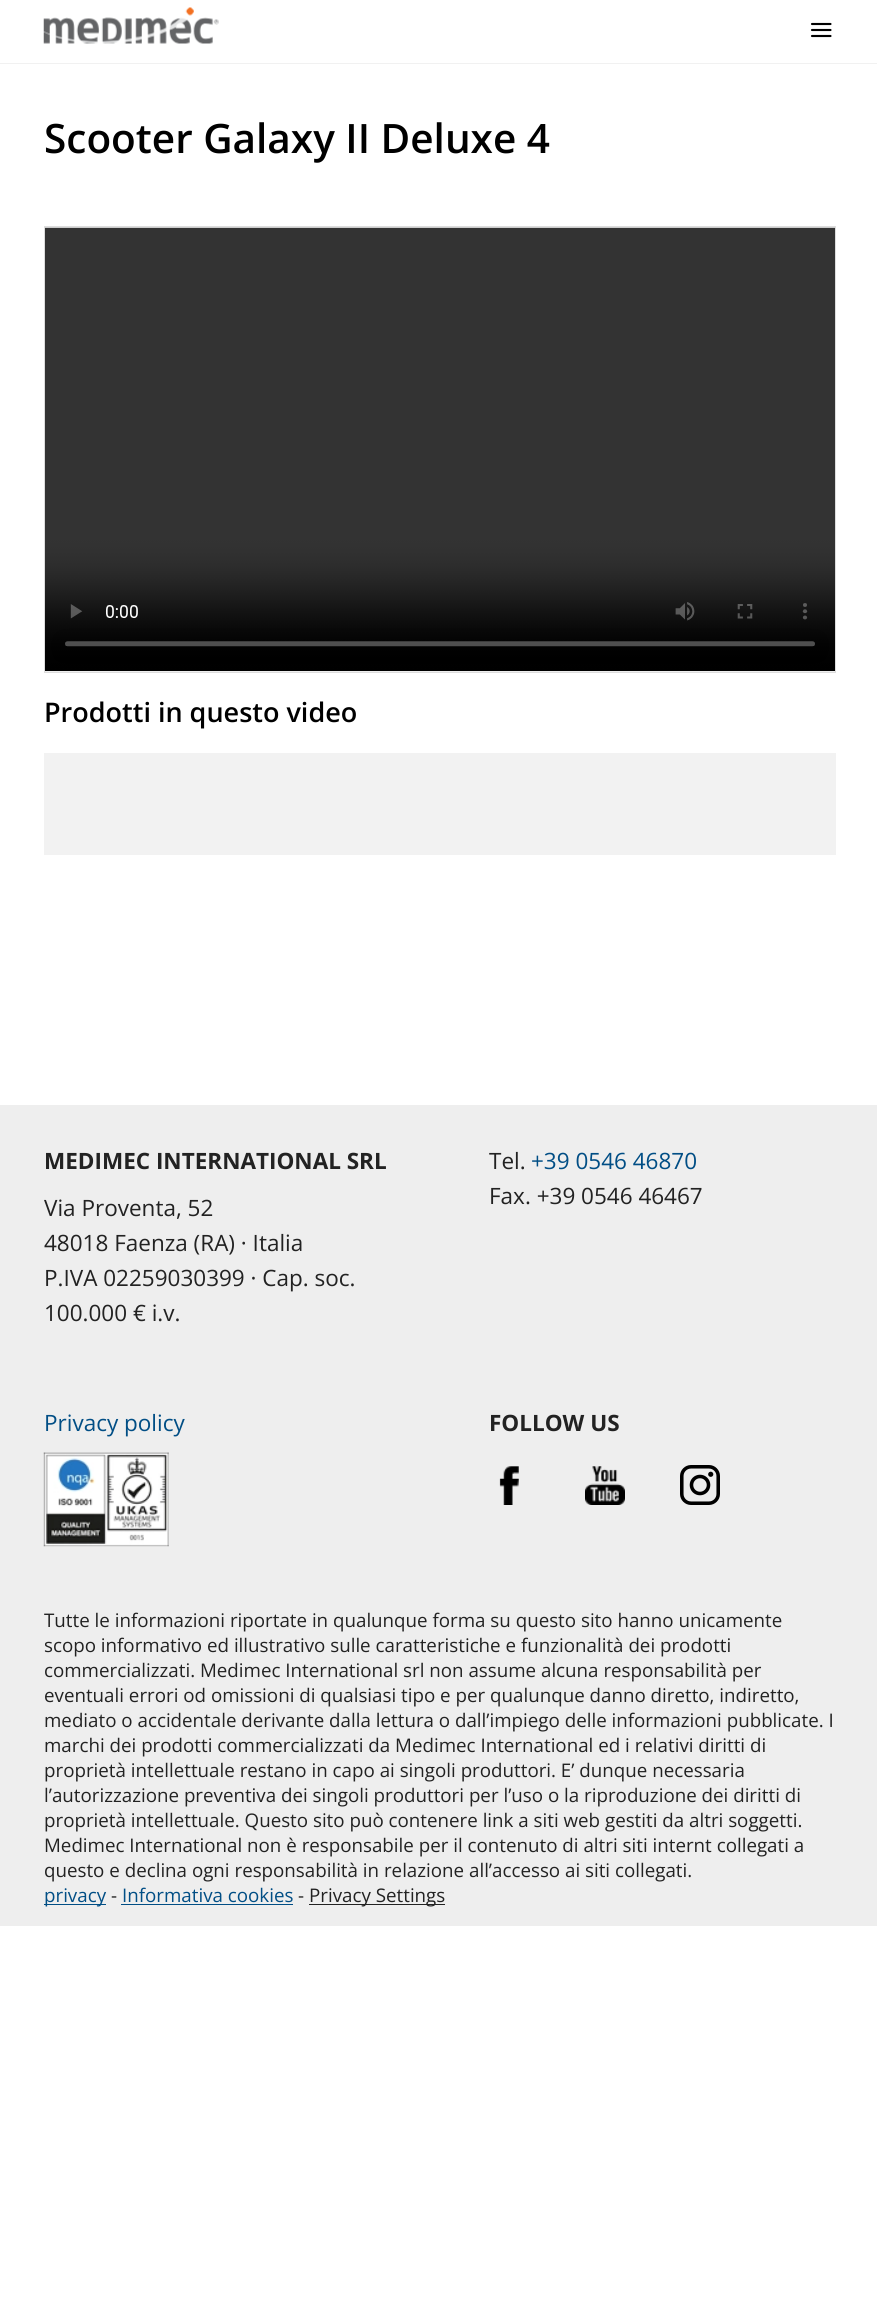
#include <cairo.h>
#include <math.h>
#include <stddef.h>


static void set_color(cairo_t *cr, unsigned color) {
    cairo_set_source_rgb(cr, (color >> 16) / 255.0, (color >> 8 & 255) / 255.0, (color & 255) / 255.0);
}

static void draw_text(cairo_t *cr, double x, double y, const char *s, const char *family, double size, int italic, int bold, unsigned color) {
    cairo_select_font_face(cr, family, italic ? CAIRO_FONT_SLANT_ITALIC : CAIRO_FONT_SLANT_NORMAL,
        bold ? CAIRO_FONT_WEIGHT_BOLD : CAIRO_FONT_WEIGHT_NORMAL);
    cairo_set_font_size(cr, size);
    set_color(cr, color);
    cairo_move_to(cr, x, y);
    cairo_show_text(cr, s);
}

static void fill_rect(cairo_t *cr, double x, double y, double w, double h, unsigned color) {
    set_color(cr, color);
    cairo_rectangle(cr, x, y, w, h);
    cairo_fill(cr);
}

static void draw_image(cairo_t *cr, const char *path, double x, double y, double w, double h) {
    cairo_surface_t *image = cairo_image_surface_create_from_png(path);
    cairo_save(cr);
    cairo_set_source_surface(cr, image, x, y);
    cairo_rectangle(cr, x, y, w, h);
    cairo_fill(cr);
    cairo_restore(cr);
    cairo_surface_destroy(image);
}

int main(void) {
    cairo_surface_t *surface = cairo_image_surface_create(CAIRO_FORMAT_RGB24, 877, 2303);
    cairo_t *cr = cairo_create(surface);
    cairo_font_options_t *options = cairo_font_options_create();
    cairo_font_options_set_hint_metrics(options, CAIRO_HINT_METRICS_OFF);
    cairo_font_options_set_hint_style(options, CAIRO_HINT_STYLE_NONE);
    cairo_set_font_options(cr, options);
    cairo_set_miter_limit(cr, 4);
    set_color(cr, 0xFFFFFF);
    cairo_paint(cr);
    fill_rect(cr, 0, 63, 877, 1, 0xF1F1F1);
    draw_image(cr, "assets/img1.png", 43, 7, 176, 37);
    cairo_new_path(cr);
    cairo_move_to(cr, 812, 30);
    cairo_line_to(cr, 830.5, 30);
    cairo_move_to(cr, 812, 24);
    cairo_line_to(cr, 830.5, 24);
    cairo_move_to(cr, 812, 36);
    cairo_line_to(cr, 830.5, 36);
    set_color(cr, 0x000000);
    cairo_set_line_width(cr, 2.1);
    cairo_set_line_cap(cr, CAIRO_LINE_CAP_ROUND);
    cairo_set_line_join(cr, CAIRO_LINE_JOIN_ROUND);
    cairo_stroke(cr);
    draw_text(cr, 44, 153, "Scooter Galaxy II Deluxe 4", "Open Sans SemiBold", 40.5, 0, 0, 0x000000);
    cairo_rectangle(cr, 44.5, 226.5, 791, 446);
    set_color(cr, 0xDDDDDD);
    cairo_set_line_width(cr, 1);
    cairo_set_line_cap(cr, CAIRO_LINE_CAP_BUTT);
    cairo_set_line_join(cr, CAIRO_LINE_JOIN_MITER);
    cairo_stroke(cr);
    draw_image(cr, "assets/img2.png", 45, 227, 790, 445);
    draw_text(cr, 44, 722, "Prodotti in questo video", "Open Sans SemiBold", 27, 0, 0, 0x000000);
    fill_rect(cr, 44, 753, 792, 102, 0xF2F2F2);
    fill_rect(cr, 0, 1105, 877, 821, 0xEEEEEE);
    draw_text(cr, 44, 1169, "MEDIMEC INTERNATIONAL SRL", "Open Sans", 22.5, 0, 1, 0x222222);
    draw_text(cr, 44, 1216, "Via Proventa, 52", "Open Sans", 22.5, 0, 0, 0x222222);
    draw_text(cr, 44, 1251, "48018 Faenza (RA) · Italia", "Open Sans", 22.5, 0, 0, 0x222222);
    draw_text(cr, 44, 1286, "P.IVA 02259030399 · Cap. soc.", "Open Sans", 22.5, 0, 0, 0x222222);
    draw_text(cr, 44, 1321, "100.000 € i.v.", "Open Sans", 22.5, 0, 0, 0x222222);
    draw_text(cr, 489, 1169, "Tel.", "Open Sans", 22.5, 0, 0, 0x222222);
    draw_text(cr, 531, 1169, "+39 0546 46870", "Open Sans", 22.5, 0, 0, 0x014E85);
    draw_text(cr, 489, 1204, "Fax. +39 0546 46467", "Open Sans", 22.5, 0, 0, 0x222222);
    draw_text(cr, 44, 1431, "Privacy policy", "Open Sans", 22.5, 0, 0, 0x014E85);
    draw_image(cr, "assets/img3.png", 43, 1452, 126, 95);
    draw_text(cr, 489, 1431, "FOLLOW US", "Open Sans", 22.5, 0, 1, 0x222222);
    draw_image(cr, "assets/img4.png", 499, 1466, 20, 39);
    draw_image(cr, "assets/img5.png", 585, 1466, 40, 39);
    draw_image(cr, "assets/img6.png", 680, 1465, 40, 40);
    draw_text(cr, 44, 1627, "Tutte le informazioni riportate in qualunque forma su questo sito hanno unicamente", "Open Sans", 18.75, 0, 0, 0x222222);
    draw_text(cr, 44, 1652, "scopo informativo ed illustrativo sulle caratteristiche e funzionalità dei prodotti", "Open Sans", 18.75, 0, 0, 0x222222);
    draw_text(cr, 44, 1677, "commercializzati. Medimec International srl non assume alcuna responsabilità per", "Open Sans", 18.75, 0, 0, 0x222222);
    draw_text(cr, 44, 1702, "eventuali errori od omissioni di qualsiasi tipo e per qualunque danno diretto, indiretto,", "Open Sans", 18.75, 0, 0, 0x222222);
    draw_text(cr, 44, 1727, "mediato o accidentale derivante dalla lettura o dall’impiego delle informazioni pubblicate. I", "Open Sans", 18.75, 0, 0, 0x222222);
    draw_text(cr, 44, 1752, "marchi dei prodotti commercializzati da Medimec International ed i relativi diritti di", "Open Sans", 18.75, 0, 0, 0x222222);
    draw_text(cr, 44, 1777, "proprietà intellettuale restano in capo ai singoli produttori. E’ dunque necessaria", "Open Sans", 18.75, 0, 0, 0x222222);
    draw_text(cr, 44, 1802, "l’autorizzazione preventiva dei singoli produttori per l’uso o la riproduzione dei diritti di", "Open Sans", 18.75, 0, 0, 0x222222);
    draw_text(cr, 44, 1827, "proprietà intellettuale. Questo sito può contenere link a siti web gestiti da altri soggetti.", "Open Sans", 18.75, 0, 0, 0x222222);
    draw_text(cr, 44, 1852, "Medimec International non è responsabile per il contenuto di altri siti internt collegati a", "Open Sans", 18.75, 0, 0, 0x222222);
    draw_text(cr, 44, 1877, "questo e declina ogni responsabilità in relazione all’accesso ai siti collegati.", "Open Sans", 18.75, 0, 0, 0x222222);
    fill_rect(cr, 44, 1904, 62, 1, 0x014E85);
    draw_text(cr, 44, 1902, "privacy", "Open Sans", 18.75, 0, 0, 0x014E85);
    draw_text(cr, 111, 1902, "-", "Open Sans", 18.75, 0, 0, 0x222222);
    draw_text(cr, 122, 1902, "Informativa cookies", "Open Sans", 18.75, 0, 0, 0x014E85);
    fill_rect(cr, 121, 1904, 172, 1, 0x014E85);
    draw_text(cr, 298, 1902, "-", "Open Sans", 18.75, 0, 0, 0x222222);
    fill_rect(cr, 309, 1904, 136, 1, 0x222222);
    draw_text(cr, 309, 1902, "Privacy Settings", "Open Sans", 18.75, 0, 0, 0x222222);
    cairo_surface_write_to_png(surface, "output.png");
    cairo_font_options_destroy(options);
    cairo_destroy(cr);
    cairo_surface_destroy(surface);
    return 0;
}
